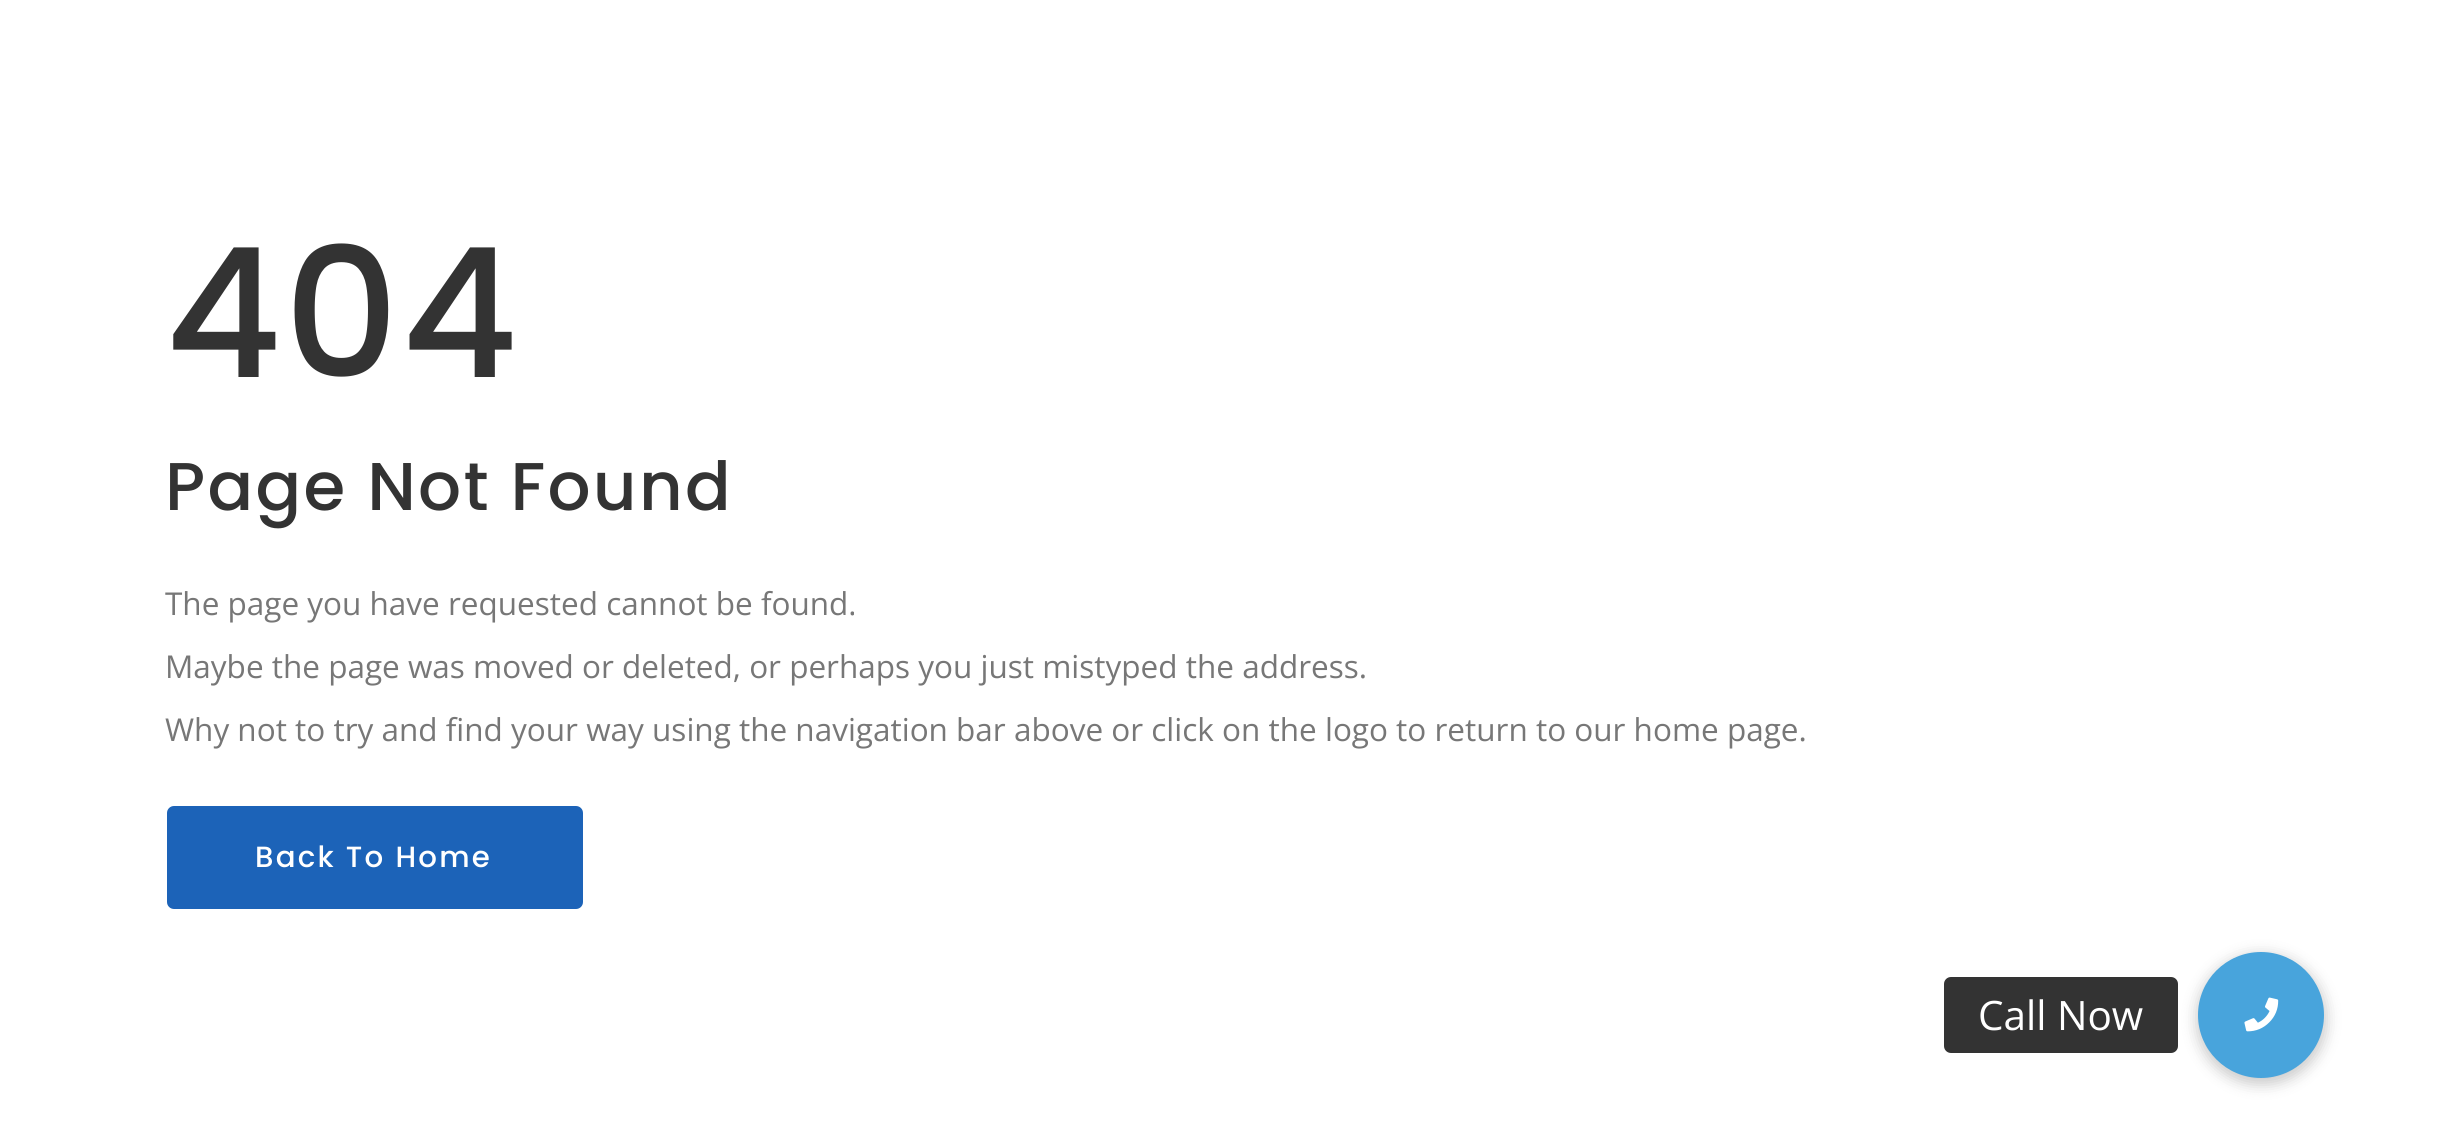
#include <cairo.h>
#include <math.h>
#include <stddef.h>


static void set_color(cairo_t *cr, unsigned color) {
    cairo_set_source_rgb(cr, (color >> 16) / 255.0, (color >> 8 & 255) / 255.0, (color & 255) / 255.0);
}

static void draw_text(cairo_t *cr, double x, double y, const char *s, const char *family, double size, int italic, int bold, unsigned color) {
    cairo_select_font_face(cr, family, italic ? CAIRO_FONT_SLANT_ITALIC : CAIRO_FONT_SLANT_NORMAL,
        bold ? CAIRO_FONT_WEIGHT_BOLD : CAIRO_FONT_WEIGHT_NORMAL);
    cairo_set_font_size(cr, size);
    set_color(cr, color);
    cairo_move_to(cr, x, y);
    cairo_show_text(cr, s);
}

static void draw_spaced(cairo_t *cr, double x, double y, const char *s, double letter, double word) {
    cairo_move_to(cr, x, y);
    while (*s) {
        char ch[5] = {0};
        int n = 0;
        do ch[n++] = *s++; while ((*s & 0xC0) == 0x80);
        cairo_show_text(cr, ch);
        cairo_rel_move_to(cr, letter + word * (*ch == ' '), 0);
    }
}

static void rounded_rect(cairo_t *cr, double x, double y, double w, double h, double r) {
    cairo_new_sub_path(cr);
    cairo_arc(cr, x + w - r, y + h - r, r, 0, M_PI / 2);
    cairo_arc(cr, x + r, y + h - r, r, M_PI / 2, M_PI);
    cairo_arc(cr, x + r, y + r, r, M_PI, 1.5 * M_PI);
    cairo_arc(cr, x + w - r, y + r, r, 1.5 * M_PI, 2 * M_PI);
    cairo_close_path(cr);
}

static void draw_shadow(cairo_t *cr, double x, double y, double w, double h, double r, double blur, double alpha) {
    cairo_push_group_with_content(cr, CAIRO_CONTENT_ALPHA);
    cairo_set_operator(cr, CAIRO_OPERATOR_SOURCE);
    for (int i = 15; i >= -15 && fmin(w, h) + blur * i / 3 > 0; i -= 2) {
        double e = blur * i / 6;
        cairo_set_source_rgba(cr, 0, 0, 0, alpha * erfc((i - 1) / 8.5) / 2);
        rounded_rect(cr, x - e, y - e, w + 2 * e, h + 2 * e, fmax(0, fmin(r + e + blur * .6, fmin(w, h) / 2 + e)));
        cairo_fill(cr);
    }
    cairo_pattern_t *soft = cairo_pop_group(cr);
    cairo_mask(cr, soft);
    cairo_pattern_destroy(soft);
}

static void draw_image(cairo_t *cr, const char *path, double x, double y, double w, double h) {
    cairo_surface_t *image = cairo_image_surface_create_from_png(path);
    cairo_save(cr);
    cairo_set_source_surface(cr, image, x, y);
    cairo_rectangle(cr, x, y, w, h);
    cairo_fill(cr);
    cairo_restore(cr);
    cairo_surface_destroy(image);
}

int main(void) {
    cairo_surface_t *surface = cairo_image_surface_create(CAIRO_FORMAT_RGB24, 2445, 1132);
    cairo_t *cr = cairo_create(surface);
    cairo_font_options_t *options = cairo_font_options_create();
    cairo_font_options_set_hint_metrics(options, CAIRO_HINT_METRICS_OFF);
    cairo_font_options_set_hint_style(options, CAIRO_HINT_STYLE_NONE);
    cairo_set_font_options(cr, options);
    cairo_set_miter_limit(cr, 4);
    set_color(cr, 0xFFFFFF);
    cairo_paint(cr);
    cairo_select_font_face(cr, "Poppins Medium", CAIRO_FONT_SLANT_NORMAL, CAIRO_FONT_WEIGHT_NORMAL);
    cairo_set_font_size(cr, 180);
    set_color(cr, 0x333333);
    draw_spaced(cr, 165, 377, "404", 2.25, 0);
    cairo_set_font_size(cr, 67.5);
    draw_spaced(cr, 165, 510, "Page Not Found", 2.25, 0);
    draw_text(cr, 165, 615, "The page you have requested cannot be found.", "Open Sans", 31.5, 0, 0, 0x777777);
    draw_text(cr, 165, 678, "Maybe the page was moved or deleted, or perhaps you just mistyped the address.", "Open Sans", 31.5, 0, 0, 0x777777);
    draw_text(cr, 165, 741, "Why not to try and find your way using the navigation bar above or click on the logo to return to our home page.", "Open Sans", 31.5, 0, 0, 0x777777);
    set_color(cr, 0x1C63B8);
    rounded_rect(cr, 167, 806, 416, 103, 7);
    cairo_fill(cr);
    cairo_select_font_face(cr, "Poppins Medium", CAIRO_FONT_SLANT_NORMAL, CAIRO_FONT_WEIGHT_NORMAL);
    cairo_set_font_size(cr, 29.25);
    set_color(cr, 0xFFFFFF);
    draw_spaced(cr, 255, 867, "Back To Home", 2.25, 0);
    set_color(cr, 0x000000);
    draw_shadow(cr, 2196, 954, 131, 131, 65.5, 7, 0.2);
    set_color(cr, 0x48A4DC);
    cairo_arc(cr, 2261, 1015, 63, 0, 2 * M_PI);
    cairo_fill(cr);
    set_color(cr, 0x333333);
    rounded_rect(cr, 1944, 977, 234, 76, 7);
    cairo_fill(cr);
    draw_text(cr, 1978, 1030, "Call Now", "Open Sans", 40.5, 0, 0, 0xFFFFFF);
    draw_image(cr, "assets/img1.png", 2244, 997, 35, 35);
    cairo_surface_write_to_png(surface, "output.png");
    cairo_font_options_destroy(options);
    cairo_destroy(cr);
    cairo_surface_destroy(surface);
    return 0;
}
